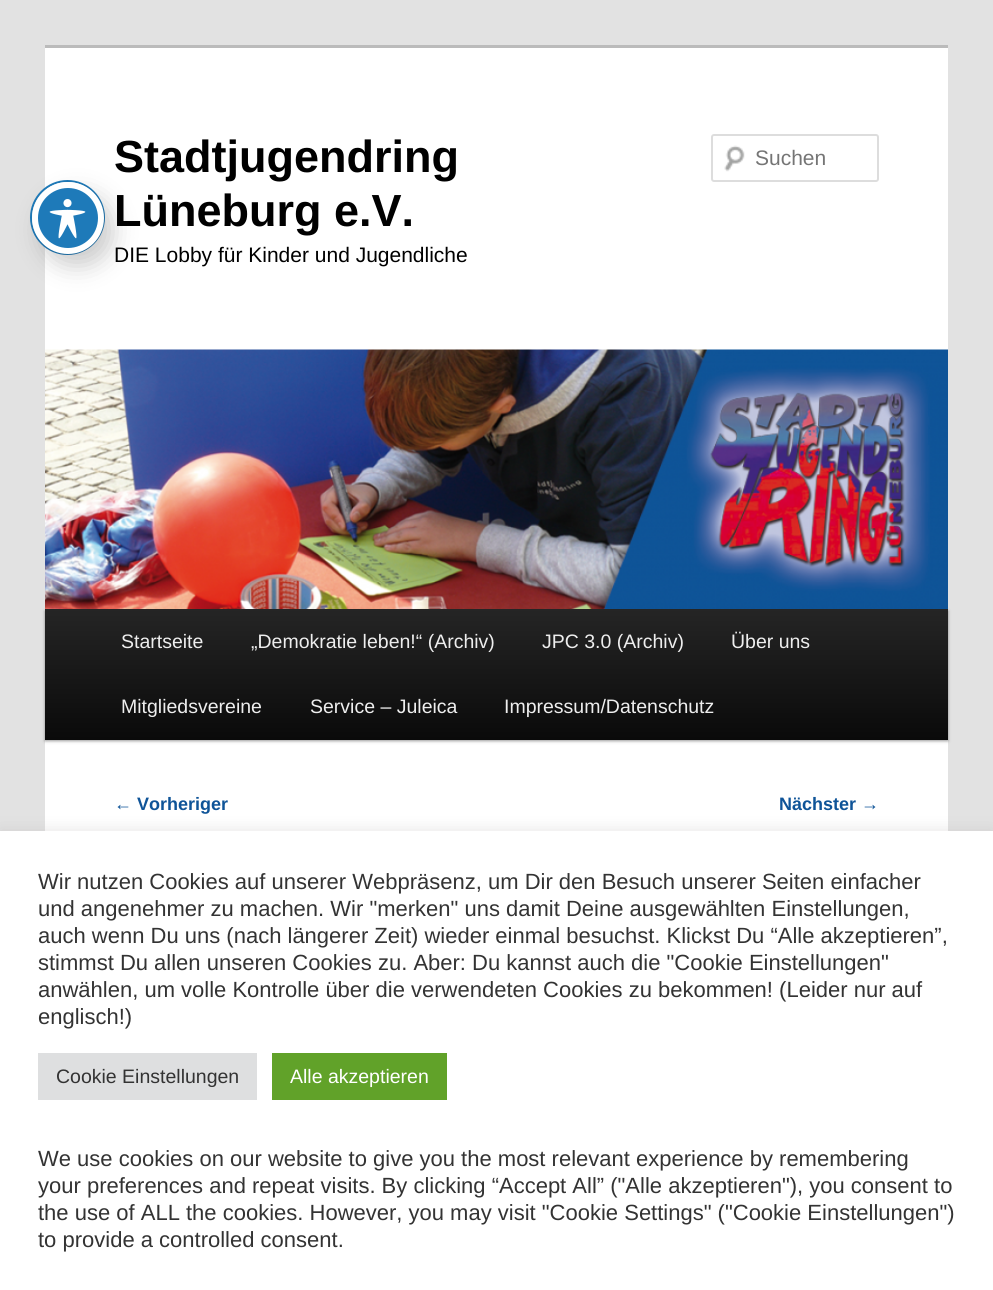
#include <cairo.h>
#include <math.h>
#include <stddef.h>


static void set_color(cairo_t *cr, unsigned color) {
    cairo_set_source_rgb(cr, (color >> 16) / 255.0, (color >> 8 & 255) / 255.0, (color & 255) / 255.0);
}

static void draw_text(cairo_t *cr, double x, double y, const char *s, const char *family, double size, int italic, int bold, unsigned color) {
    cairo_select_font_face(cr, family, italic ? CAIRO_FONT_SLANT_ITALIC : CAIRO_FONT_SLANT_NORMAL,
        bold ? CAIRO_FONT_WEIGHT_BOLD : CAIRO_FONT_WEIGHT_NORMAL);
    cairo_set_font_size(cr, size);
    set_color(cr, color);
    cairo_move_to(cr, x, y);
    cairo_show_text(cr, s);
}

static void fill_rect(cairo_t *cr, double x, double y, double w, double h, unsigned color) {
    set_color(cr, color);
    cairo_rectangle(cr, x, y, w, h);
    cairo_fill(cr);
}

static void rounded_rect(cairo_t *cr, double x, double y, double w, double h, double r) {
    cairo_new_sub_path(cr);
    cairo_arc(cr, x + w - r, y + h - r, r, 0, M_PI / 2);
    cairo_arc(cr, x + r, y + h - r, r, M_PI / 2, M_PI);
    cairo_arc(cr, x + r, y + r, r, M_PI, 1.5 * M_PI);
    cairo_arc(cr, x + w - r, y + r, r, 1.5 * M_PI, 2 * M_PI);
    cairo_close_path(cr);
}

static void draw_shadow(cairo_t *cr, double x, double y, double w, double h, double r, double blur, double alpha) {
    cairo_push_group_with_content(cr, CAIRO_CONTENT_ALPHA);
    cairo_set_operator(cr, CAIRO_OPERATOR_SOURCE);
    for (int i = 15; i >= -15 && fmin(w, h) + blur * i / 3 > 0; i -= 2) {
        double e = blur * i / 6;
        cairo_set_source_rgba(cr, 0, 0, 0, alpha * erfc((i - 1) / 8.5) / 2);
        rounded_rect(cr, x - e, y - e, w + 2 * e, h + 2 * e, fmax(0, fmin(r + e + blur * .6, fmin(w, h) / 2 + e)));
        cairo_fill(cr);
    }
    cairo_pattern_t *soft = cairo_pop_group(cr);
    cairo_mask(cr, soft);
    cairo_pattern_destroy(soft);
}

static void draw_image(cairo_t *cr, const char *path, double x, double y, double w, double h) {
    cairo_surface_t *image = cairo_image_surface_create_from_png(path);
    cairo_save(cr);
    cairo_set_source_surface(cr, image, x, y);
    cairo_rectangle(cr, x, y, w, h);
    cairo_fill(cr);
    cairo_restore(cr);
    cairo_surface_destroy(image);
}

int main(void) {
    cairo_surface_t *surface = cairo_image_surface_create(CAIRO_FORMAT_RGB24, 993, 1290);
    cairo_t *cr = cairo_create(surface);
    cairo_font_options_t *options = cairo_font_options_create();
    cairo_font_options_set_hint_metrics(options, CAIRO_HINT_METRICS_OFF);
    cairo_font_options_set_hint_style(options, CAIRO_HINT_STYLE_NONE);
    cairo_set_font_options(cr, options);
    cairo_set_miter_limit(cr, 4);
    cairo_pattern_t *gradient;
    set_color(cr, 0xE2E2E2);
    cairo_paint(cr);
    fill_rect(cr, 45, 48, 903, 783, 0xFFFFFF);
    cairo_arc(cr, 67.5, 217.5, 36.5, 0, 2 * M_PI);
    set_color(cr, 0x1E7AB9);
    cairo_stroke(cr);
    set_color(cr, 0x000000);
    draw_shadow(cr, 41, 194, 72, 72, 36, 12, 0.2);
    set_color(cr, 0x1E7AB9);
    cairo_arc(cr, 68, 218, 33, 0, 2 * M_PI);
    cairo_fill_preserve(cr);
    set_color(cr, 0xFFFFFF);
    cairo_set_line_width(cr, 6);
    cairo_stroke(cr);
    draw_image(cr, "assets/img1.png", 49, 199, 37, 40);
    fill_rect(cr, 45, 45, 903, 3, 0xBBBBBB);
    draw_text(cr, 114, 172, "Stadtjugendring", "Liberation Sans", 45, 0, 1, 0x000000);
    draw_text(cr, 114, 226, "Lüneburg e.V.", "Liberation Sans", 45, 0, 1, 0x000000);
    draw_text(cr, 114, 262, "DIE Lobby für Kinder und Jugendliche", "Liberation Sans", 21, 0, 0, 0x000000);
    draw_image(cr, "assets/img2.png", 724, 145, 21, 27);
    rounded_rect(cr, 712, 135, 166, 46, 2);
    set_color(cr, 0xDDDDDD);
    cairo_set_line_width(cr, 2);
    cairo_stroke(cr);
    draw_text(cr, 755, 165, "Suchen", "Liberation Sans", 21, 0, 0, 0x757575);
    set_color(cr, 0x000000);
    draw_shadow(cr, 45, 611, 903, 130, 0, 1.5, 0.4);
    draw_image(cr, "assets/img3.png", 45, 349, 903, 260);
    gradient = cairo_pattern_create_linear(497, 609, 497, 740);
    cairo_pattern_add_color_stop_rgba(gradient, 0, 0.145, 0.145, 0.145, 1);
    cairo_pattern_add_color_stop_rgba(gradient, 1, 0.039, 0.039, 0.039, 1);
    cairo_set_source(cr, gradient);
    cairo_pattern_destroy(gradient);
    cairo_rectangle(cr, 45, 609, 903, 131);
    cairo_fill(cr);
    draw_text(cr, 121, 648, "Startseite", "Liberation Sans", 19.5, 0, 0, 0xEEEEEE);
    draw_text(cr, 251, 648, "„Demokratie leben!“ (Archiv)", "Liberation Sans", 19.5, 0, 0, 0xEEEEEE);
    draw_text(cr, 542, 648, "JPC 3.0 (Archiv)", "Liberation Sans", 19.5, 0, 0, 0xEEEEEE);
    draw_text(cr, 731, 648, "Über uns", "Liberation Sans", 19.5, 0, 0, 0xEEEEEE);
    draw_text(cr, 121, 713, "Mitgliedsvereine", "Liberation Sans", 19.5, 0, 0, 0xEEEEEE);
    draw_text(cr, 310, 713, "Service – Juleica", "Liberation Sans", 19.5, 0, 0, 0xEEEEEE);
    draw_text(cr, 504, 713, "Impressum/Datenschutz", "Liberation Sans", 19.5, 0, 0, 0xEEEEEE);
    draw_text(cr, 114, 810, "←", "Liberation Sans", 18, 0, 0, 0x0F5498);
    draw_text(cr, 137, 810, "Vorheriger", "Liberation Sans", 18, 0, 1, 0x0F5498);
    draw_text(cr, 779, 810, "Nächster", "Liberation Sans", 18, 0, 1, 0x0F5498);
    draw_text(cr, 861, 810, "→", "Liberation Sans", 18, 0, 0, 0x0F5498);
    set_color(cr, 0xACABAB);
    draw_shadow(cr, 0, 830, 993, 459, 0, 7.5, 0.3);
    fill_rect(cr, 0, 831, 993, 459, 0xFFFFFF);
    draw_text(cr, 38, 889, "Wir nutzen Cookies auf unserer Webpräsenz, um Dir den Besuch unserer Seiten einfacher", "Liberation Sans", 22, 0, 0, 0x333333);
    draw_text(cr, 38, 916, "und angenehmer zu machen. Wir \"merken\" uns damit Deine ausgewählten Einstellungen,", "Liberation Sans", 22, 0, 0, 0x333333);
    draw_text(cr, 38, 943, "auch wenn Du uns (nach längerer Zeit) wieder einmal besuchst. Klickst Du “Alle akzeptieren”,", "Liberation Sans", 22, 0, 0, 0x333333);
    draw_text(cr, 38, 970, "stimmst Du allen unseren Cookies zu. Aber: Du kannst auch die \"Cookie Einstellungen\"", "Liberation Sans", 22, 0, 0, 0x333333);
    draw_text(cr, 38, 997, "anwählen, um volle Kontrolle über die verwendeten Cookies zu bekommen! (Leider nur auf", "Liberation Sans", 22, 0, 0, 0x333333);
    draw_text(cr, 38, 1024, "englisch!)", "Liberation Sans", 22, 0, 0, 0x333333);
    fill_rect(cr, 38, 1053, 219, 47, 0xDEDFE0);
    draw_text(cr, 56, 1083, "Cookie Einstellungen", "Liberation Sans", 19.5, 0, 0, 0x333333);
    fill_rect(cr, 272, 1053, 175, 47, 0x61A229);
    draw_text(cr, 290, 1083, "Alle akzeptieren", "Liberation Sans", 19.5, 0, 0, 0xFFFFFF);
    draw_text(cr, 38, 1166, "We use cookies on our website to give you the most relevant experience by remembering", "Liberation Sans", 22, 0, 0, 0x333333);
    draw_text(cr, 38, 1193, "your preferences and repeat visits. By clicking “Accept All” (\"Alle akzeptieren\"), you consent to", "Liberation Sans", 22, 0, 0, 0x333333);
    draw_text(cr, 38, 1220, "the use of ALL the cookies. However, you may visit \"Cookie Settings\" (\"Cookie Einstellungen\")", "Liberation Sans", 22, 0, 0, 0x333333);
    draw_text(cr, 38, 1247, "to provide a controlled consent.", "Liberation Sans", 22, 0, 0, 0x333333);
    cairo_surface_write_to_png(surface, "output.png");
    cairo_font_options_destroy(options);
    cairo_destroy(cr);
    cairo_surface_destroy(surface);
    return 0;
}
